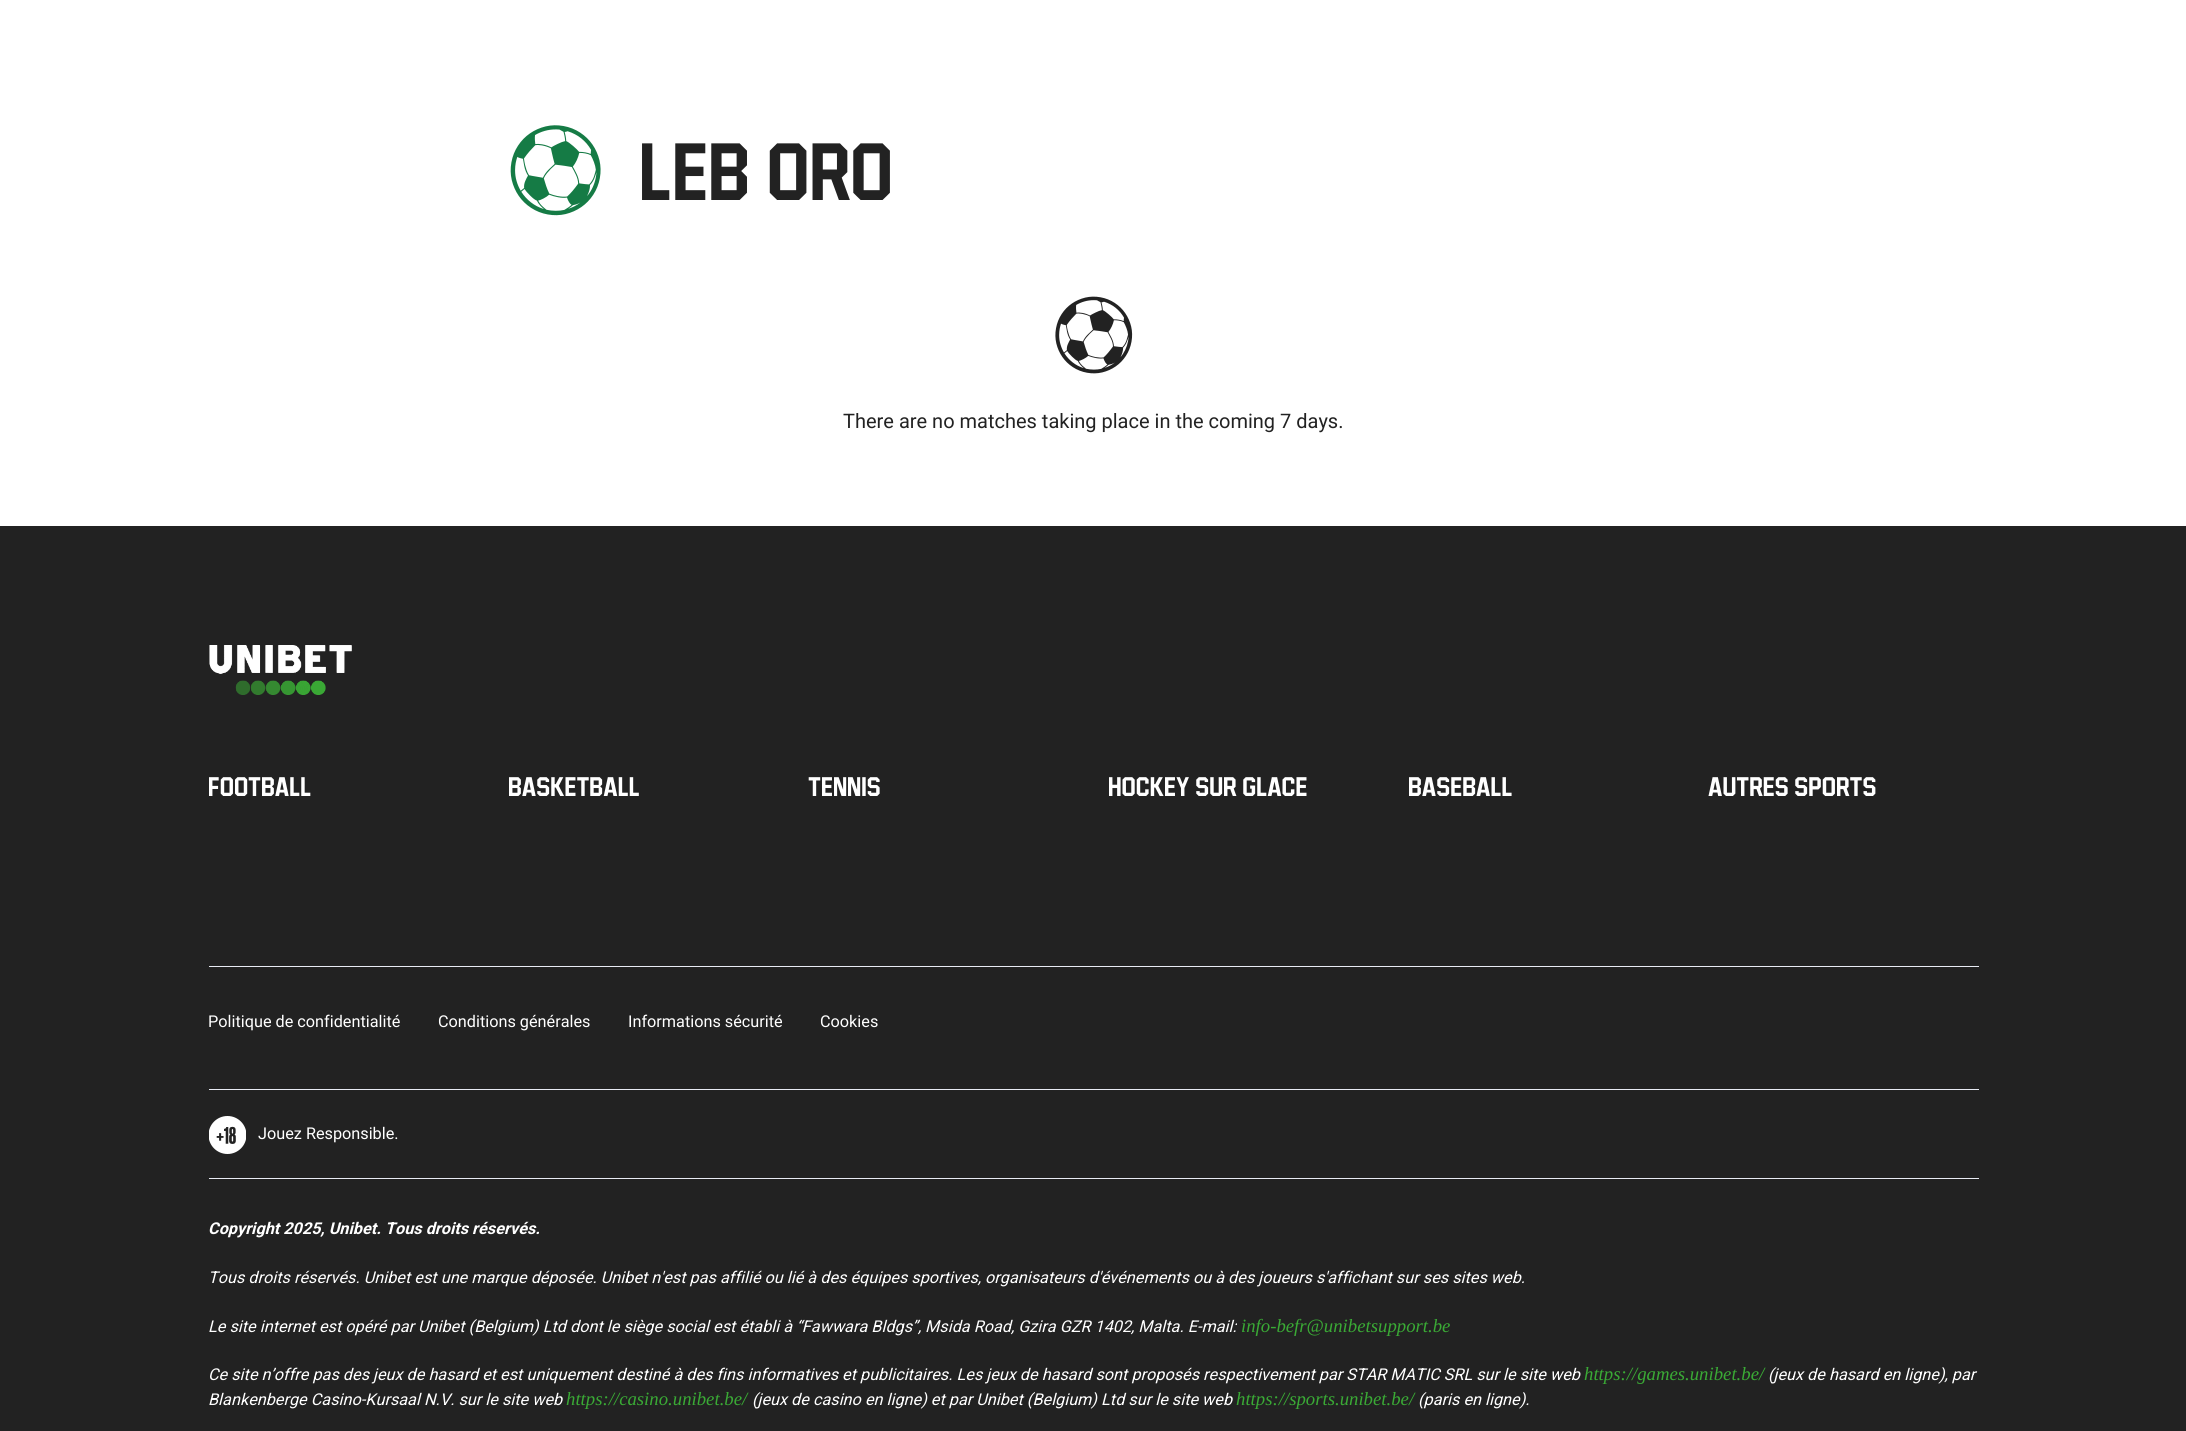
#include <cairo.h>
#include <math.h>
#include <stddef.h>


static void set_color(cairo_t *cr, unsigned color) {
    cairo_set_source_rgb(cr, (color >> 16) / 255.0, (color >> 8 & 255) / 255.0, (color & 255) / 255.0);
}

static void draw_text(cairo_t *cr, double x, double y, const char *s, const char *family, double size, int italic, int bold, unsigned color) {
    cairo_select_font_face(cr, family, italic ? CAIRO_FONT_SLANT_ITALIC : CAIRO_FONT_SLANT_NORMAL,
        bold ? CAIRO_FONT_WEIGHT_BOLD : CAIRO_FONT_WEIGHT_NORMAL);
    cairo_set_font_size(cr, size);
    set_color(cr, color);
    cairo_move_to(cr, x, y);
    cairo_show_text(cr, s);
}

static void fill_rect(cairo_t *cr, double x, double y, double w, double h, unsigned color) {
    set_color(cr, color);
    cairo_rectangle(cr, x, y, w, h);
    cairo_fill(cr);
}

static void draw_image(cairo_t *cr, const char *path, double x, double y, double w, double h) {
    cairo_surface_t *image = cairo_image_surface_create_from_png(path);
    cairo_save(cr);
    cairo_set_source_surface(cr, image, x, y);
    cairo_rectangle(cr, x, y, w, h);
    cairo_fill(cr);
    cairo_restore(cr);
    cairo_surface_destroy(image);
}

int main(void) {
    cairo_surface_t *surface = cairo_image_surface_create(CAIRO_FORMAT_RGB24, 2186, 1431);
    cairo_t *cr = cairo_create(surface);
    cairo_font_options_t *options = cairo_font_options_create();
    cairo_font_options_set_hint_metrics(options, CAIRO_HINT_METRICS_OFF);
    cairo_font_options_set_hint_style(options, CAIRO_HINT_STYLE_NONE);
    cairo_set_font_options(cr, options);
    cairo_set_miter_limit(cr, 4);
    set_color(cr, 0xFFFFFF);
    cairo_paint(cr);
    draw_image(cr, "assets/img1.png", 510, 125, 91, 91);
    draw_text(cr, 639, 200, "LEB Oro", "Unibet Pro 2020 Medium", 94, 0, 0, 0x222222);
    draw_image(cr, "assets/img2.png", 1055, 296, 78, 78);
    draw_text(cr, 843, 428, "There are no matches taking place in the coming 7 days.", "Roboto", 20, 0, 0, 0x222222);
    fill_rect(cr, 0, 526, 2186, 905, 0x222222);
    draw_image(cr, "assets/img3.png", 209, 645, 143, 50);
    draw_text(cr, 208, 796, "Football", "Unibet Pro 2020 Medium", 31.25, 0, 0, 0xFFFFFF);
    draw_text(cr, 508, 796, "Basketball", "Unibet Pro 2020 Medium", 31.25, 0, 0, 0xFFFFFF);
    draw_text(cr, 808, 796, "Tennis", "Unibet Pro 2020 Medium", 31.25, 0, 0, 0xFFFFFF);
    draw_text(cr, 1108, 796, "Hockey sur Glace", "Unibet Pro 2020 Medium", 31.25, 0, 0, 0xFFFFFF);
    draw_text(cr, 1408, 796, "Baseball", "Unibet Pro 2020 Medium", 31.25, 0, 0, 0xFFFFFF);
    draw_text(cr, 1708, 796, "Autres sports", "Unibet Pro 2020 Medium", 31.25, 0, 0, 0xFFFFFF);
    fill_rect(cr, 209, 966, 1770, 1, 0xE8EBF3);
    fill_rect(cr, 209, 1089, 1770, 1, 0xE8EBF3);
    draw_text(cr, 208, 1027, "Politique de confidentialité", "Roboto", 16.25, 0, 0, 0xFFFFFF);
    draw_text(cr, 438, 1027, "Conditions générales", "Roboto", 16.25, 0, 0, 0xFFFFFF);
    draw_text(cr, 628, 1027, "Informations sécurité", "Roboto", 16.25, 0, 0, 0xFFFFFF);
    draw_text(cr, 820, 1027, "Cookies", "Roboto", 16.25, 0, 0, 0xFFFFFF);
    fill_rect(cr, 209, 1178, 1770, 1, 0xE8EBF3);
    draw_image(cr, "assets/img4.png", 209, 1116, 37, 38);
    draw_text(cr, 258, 1139, "Jouez Responsible.", "Roboto", 16.25, 0, 0, 0xFFFFFF);
    draw_text(cr, 208, 1234, "Copyright 2025, Unibet. Tous droits réservés.", "Roboto", 16.25, 1, 1, 0xFFFFFF);
    draw_text(cr, 208, 1283, "Tous droits réservés. Unibet est une marque déposée. Unibet n'est pas affilié ou lié à des équipes sportives, organisateurs d'événements ou à des joueurs s'affichant sur ses sites web.", "Roboto", 16.25, 1, 0, 0xFFFFFF);
    draw_text(cr, 208, 1332, "Le site internet est opéré par Unibet (Belgium) Ltd dont le siège social est établi à “Fawwara Bldgs”, Msida Road, Gzira GZR 1402, Malta. E-mail:", "Roboto", 16.25, 1, 0, 0xFFFFFF);
    draw_text(cr, 1241, 1332, "info-befr@unibetsupport.be", "Liberation Serif", 18.75, 1, 0, 0x3AAA35);
    draw_text(cr, 208, 1380, "Ce site n’offre pas des jeux de hasard et est uniquement destiné à des fins informatives et publicitaires. Les jeux de hasard sont proposés respectivement par STAR MATIC SRL sur le site web", "Roboto", 16.25, 1, 0, 0xFFFFFF);
    draw_text(cr, 1584, 1380, "https://games.unibet.be/", "Liberation Serif", 18.75, 1, 0, 0x3AAA35);
    draw_text(cr, 1768, 1380, "(jeux de hasard en ligne), par", "Roboto", 16.25, 1, 0, 0xFFFFFF);
    draw_text(cr, 208, 1405, "Blankenberge Casino-Kursaal N.V. sur le site web", "Roboto", 16.25, 1, 0, 0xFFFFFF);
    draw_text(cr, 566, 1405, "https://casino.unibet.be/", "Liberation Serif", 18.75, 1, 0, 0x3AAA35);
    draw_text(cr, 752, 1405, "(jeux de casino en ligne) et par Unibet (Belgium) Ltd sur le site web", "Roboto", 16.25, 1, 0, 0xFFFFFF);
    draw_text(cr, 1236, 1405, "https://sports.unibet.be/", "Liberation Serif", 18.75, 1, 0, 0x3AAA35);
    draw_text(cr, 1418, 1405, "(paris en ligne).", "Roboto", 16.25, 1, 0, 0xFFFFFF);
    cairo_surface_write_to_png(surface, "output.png");
    cairo_font_options_destroy(options);
    cairo_destroy(cr);
    cairo_surface_destroy(surface);
    return 0;
}
